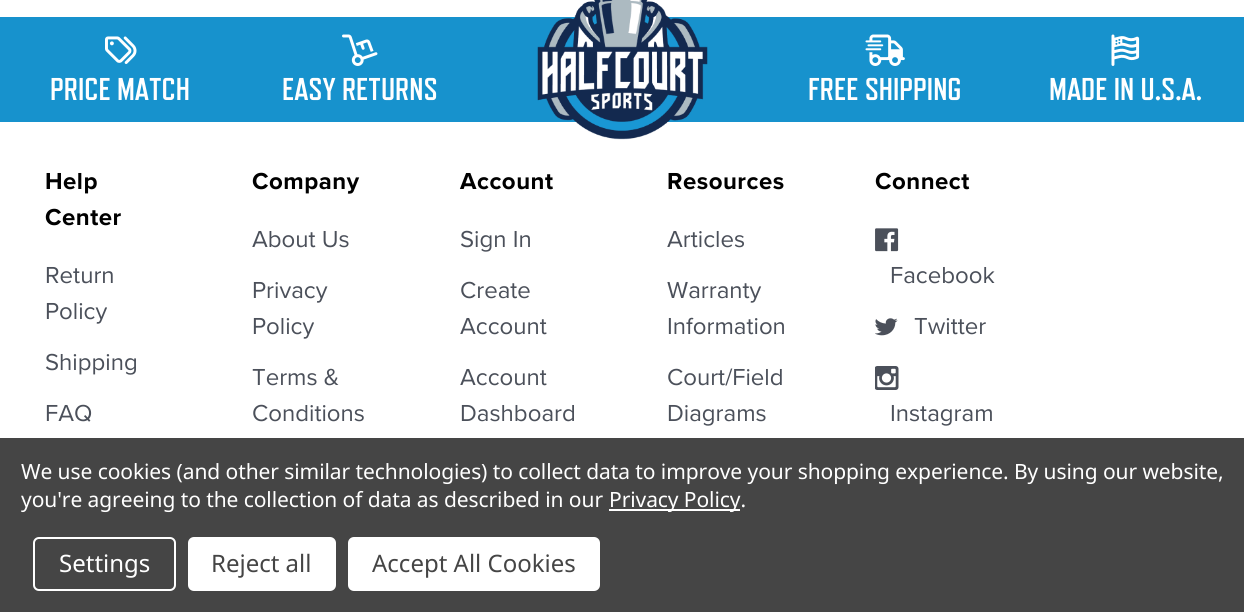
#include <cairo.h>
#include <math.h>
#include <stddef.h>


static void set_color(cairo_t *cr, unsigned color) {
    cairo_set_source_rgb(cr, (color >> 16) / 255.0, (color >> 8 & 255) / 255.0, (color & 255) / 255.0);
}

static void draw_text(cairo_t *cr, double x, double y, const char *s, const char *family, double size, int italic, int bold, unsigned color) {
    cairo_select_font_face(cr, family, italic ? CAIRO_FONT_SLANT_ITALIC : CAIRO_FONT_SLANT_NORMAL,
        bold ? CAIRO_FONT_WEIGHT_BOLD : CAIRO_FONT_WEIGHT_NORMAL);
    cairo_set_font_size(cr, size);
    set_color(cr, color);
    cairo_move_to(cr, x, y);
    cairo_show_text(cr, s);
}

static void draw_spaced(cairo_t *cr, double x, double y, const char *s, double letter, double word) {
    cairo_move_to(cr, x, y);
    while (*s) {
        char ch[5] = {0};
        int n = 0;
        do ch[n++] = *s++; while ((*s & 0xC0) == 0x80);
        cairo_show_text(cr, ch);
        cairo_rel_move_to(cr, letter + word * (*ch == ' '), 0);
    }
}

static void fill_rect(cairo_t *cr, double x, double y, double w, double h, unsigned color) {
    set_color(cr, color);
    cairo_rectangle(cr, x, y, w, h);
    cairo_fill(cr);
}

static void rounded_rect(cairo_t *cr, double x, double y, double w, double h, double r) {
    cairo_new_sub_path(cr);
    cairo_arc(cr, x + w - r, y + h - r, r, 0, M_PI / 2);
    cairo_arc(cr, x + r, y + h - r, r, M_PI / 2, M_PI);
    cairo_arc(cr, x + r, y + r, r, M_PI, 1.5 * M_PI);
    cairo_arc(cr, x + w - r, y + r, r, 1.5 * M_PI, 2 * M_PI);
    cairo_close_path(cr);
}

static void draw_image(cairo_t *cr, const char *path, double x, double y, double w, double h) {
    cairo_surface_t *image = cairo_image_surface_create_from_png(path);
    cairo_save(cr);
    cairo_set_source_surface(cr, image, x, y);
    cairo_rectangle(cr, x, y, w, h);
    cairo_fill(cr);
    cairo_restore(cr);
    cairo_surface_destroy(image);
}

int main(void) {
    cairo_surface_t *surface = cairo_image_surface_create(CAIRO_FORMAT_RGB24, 1244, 612);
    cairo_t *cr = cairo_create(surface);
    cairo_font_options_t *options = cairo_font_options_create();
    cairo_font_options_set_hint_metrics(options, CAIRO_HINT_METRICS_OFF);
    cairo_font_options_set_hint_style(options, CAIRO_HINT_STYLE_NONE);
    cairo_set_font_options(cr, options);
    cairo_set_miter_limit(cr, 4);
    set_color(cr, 0xFFFFFF);
    cairo_paint(cr);
    fill_rect(cr, 0, 17, 1244, 105, 0x1792CD);
    draw_image(cr, "assets/img1.png", 105, 36, 32, 28);
    draw_text(cr, 50, 100, "PRICE MATCH", "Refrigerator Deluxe", 31.5, 0, 1, 0xFFFFFF);
    draw_image(cr, "assets/img2.png", 342, 34, 36, 32);
    draw_text(cr, 282, 100, "EASY RETURNS", "Refrigerator Deluxe", 31.5, 0, 1, 0xFFFFFF);
    draw_image(cr, "assets/img3.png", 537, 0, 171, 140);
    draw_image(cr, "assets/img4.png", 865, 34, 40, 32);
    draw_text(cr, 808, 100, "FREE SHIPPING", "Refrigerator Deluxe", 31.5, 0, 1, 0xFFFFFF);
    draw_image(cr, "assets/img5.png", 1111, 34, 29, 32);
    draw_text(cr, 1049, 100, "MADE IN U.S.A.", "Refrigerator Deluxe", 31.5, 0, 1, 0xFFFFFF);
    cairo_select_font_face(cr, "Proxima Nova", CAIRO_FONT_SLANT_NORMAL, CAIRO_FONT_WEIGHT_BOLD);
    cairo_set_font_size(cr, 24);
    set_color(cr, 0x000000);
    draw_spaced(cr, 45, 189, "Help", 0.5, 0);
    draw_spaced(cr, 45, 225, "Center", 0.5, 0);
    draw_text(cr, 45, 283, "Return", "Proxima Nova", 24, 0, 0, 0x4B505A);
    draw_text(cr, 45, 319, "Policy", "Proxima Nova", 24, 0, 0, 0x4B505A);
    draw_text(cr, 45, 370, "Shipping", "Proxima Nova", 24, 0, 0, 0x4B505A);
    draw_text(cr, 45, 421, "FAQ", "Proxima Nova", 24, 0, 0, 0x4B505A);
    cairo_select_font_face(cr, "Proxima Nova", CAIRO_FONT_SLANT_NORMAL, CAIRO_FONT_WEIGHT_BOLD);
    set_color(cr, 0x000000);
    draw_spaced(cr, 252, 189, "Company", 0.5, 0);
    draw_text(cr, 252, 247, "About Us", "Proxima Nova", 24, 0, 0, 0x4B505A);
    draw_text(cr, 252, 298, "Privacy", "Proxima Nova", 24, 0, 0, 0x4B505A);
    draw_text(cr, 252, 334, "Policy", "Proxima Nova", 24, 0, 0, 0x4B505A);
    draw_text(cr, 252, 385, "Terms &", "Proxima Nova", 24, 0, 0, 0x4B505A);
    draw_text(cr, 252, 421, "Conditions", "Proxima Nova", 24, 0, 0, 0x4B505A);
    cairo_select_font_face(cr, "Proxima Nova", CAIRO_FONT_SLANT_NORMAL, CAIRO_FONT_WEIGHT_BOLD);
    set_color(cr, 0x000000);
    draw_spaced(cr, 460, 189, "Account", 0.5, 0);
    draw_text(cr, 460, 247, "Sign In", "Proxima Nova", 24, 0, 0, 0x4B505A);
    draw_text(cr, 460, 298, "Create", "Proxima Nova", 24, 0, 0, 0x4B505A);
    draw_text(cr, 460, 334, "Account", "Proxima Nova", 24, 0, 0, 0x4B505A);
    draw_text(cr, 460, 385, "Account", "Proxima Nova", 24, 0, 0, 0x4B505A);
    draw_text(cr, 460, 421, "Dashboard", "Proxima Nova", 24, 0, 0, 0x4B505A);
    cairo_select_font_face(cr, "Proxima Nova", CAIRO_FONT_SLANT_NORMAL, CAIRO_FONT_WEIGHT_BOLD);
    set_color(cr, 0x000000);
    draw_spaced(cr, 667, 189, "Resources", 0.5, 0);
    draw_text(cr, 667, 247, "Articles", "Proxima Nova", 24, 0, 0, 0x4B505A);
    draw_text(cr, 667, 298, "Warranty", "Proxima Nova", 24, 0, 0, 0x4B505A);
    draw_text(cr, 667, 334, "Information", "Proxima Nova", 24, 0, 0, 0x4B505A);
    draw_text(cr, 667, 385, "Court/Field", "Proxima Nova", 24, 0, 0, 0x4B505A);
    draw_text(cr, 667, 421, "Diagrams", "Proxima Nova", 24, 0, 0, 0x4B505A);
    cairo_select_font_face(cr, "Proxima Nova", CAIRO_FONT_SLANT_NORMAL, CAIRO_FONT_WEIGHT_BOLD);
    set_color(cr, 0x000000);
    draw_spaced(cr, 875, 189, "Connect", 0.5, 0);
    draw_image(cr, "assets/img6.png", 875, 228, 24, 24);
    draw_text(cr, 890, 283, "Facebook", "Proxima Nova", 24, 0, 0, 0x4B505A);
    draw_image(cr, "assets/img7.png", 875, 318, 23, 18);
    draw_text(cr, 914, 334, "Twitter", "Proxima Nova", 24, 0, 0, 0x4B505A);
    draw_image(cr, "assets/img8.png", 875, 366, 24, 24);
    draw_text(cr, 890, 421, "Instagram", "Proxima Nova", 24, 0, 0, 0x4B505A);
    fill_rect(cr, 0, 438, 1244, 174, 0x454545);
    cairo_select_font_face(cr, "Noto Sans", CAIRO_FONT_SLANT_NORMAL, CAIRO_FONT_WEIGHT_NORMAL);
    cairo_set_font_size(cr, 21);
    set_color(cr, 0xFFFFFF);
    draw_spaced(cr, 21, 479, "We use cookies (and other similar technologies) to collect data to improve your shopping experience. By using our website,", -0.08, 0);
    draw_spaced(cr, 21, 507, "you're agreeing to the collection of data as described in our", -0.08, 0);
    fill_rect(cr, 609, 509, 131, 2, 0xFFFFFF);
    draw_spaced(cr, 609, 507, "Privacy Policy.", -0.08, 0);
    rounded_rect(cr, 34, 538, 141, 52, 5);
    cairo_stroke(cr);
    draw_text(cr, 59, 572, "Settings", "Noto Sans", 24, 0, 0, 0xFFFFFF);
    rounded_rect(cr, 188, 537, 148, 54, 6);
    cairo_fill(cr);
    draw_text(cr, 211, 572, "Reject all", "Noto Sans", 24, 0, 0, 0x454545);
    set_color(cr, 0xFFFFFF);
    rounded_rect(cr, 348, 537, 252, 54, 6);
    cairo_fill(cr);
    draw_text(cr, 372, 572, "Accept All Cookies", "Noto Sans", 24, 0, 0, 0x454545);
    cairo_surface_write_to_png(surface, "output.png");
    cairo_font_options_destroy(options);
    cairo_destroy(cr);
    cairo_surface_destroy(surface);
    return 0;
}
